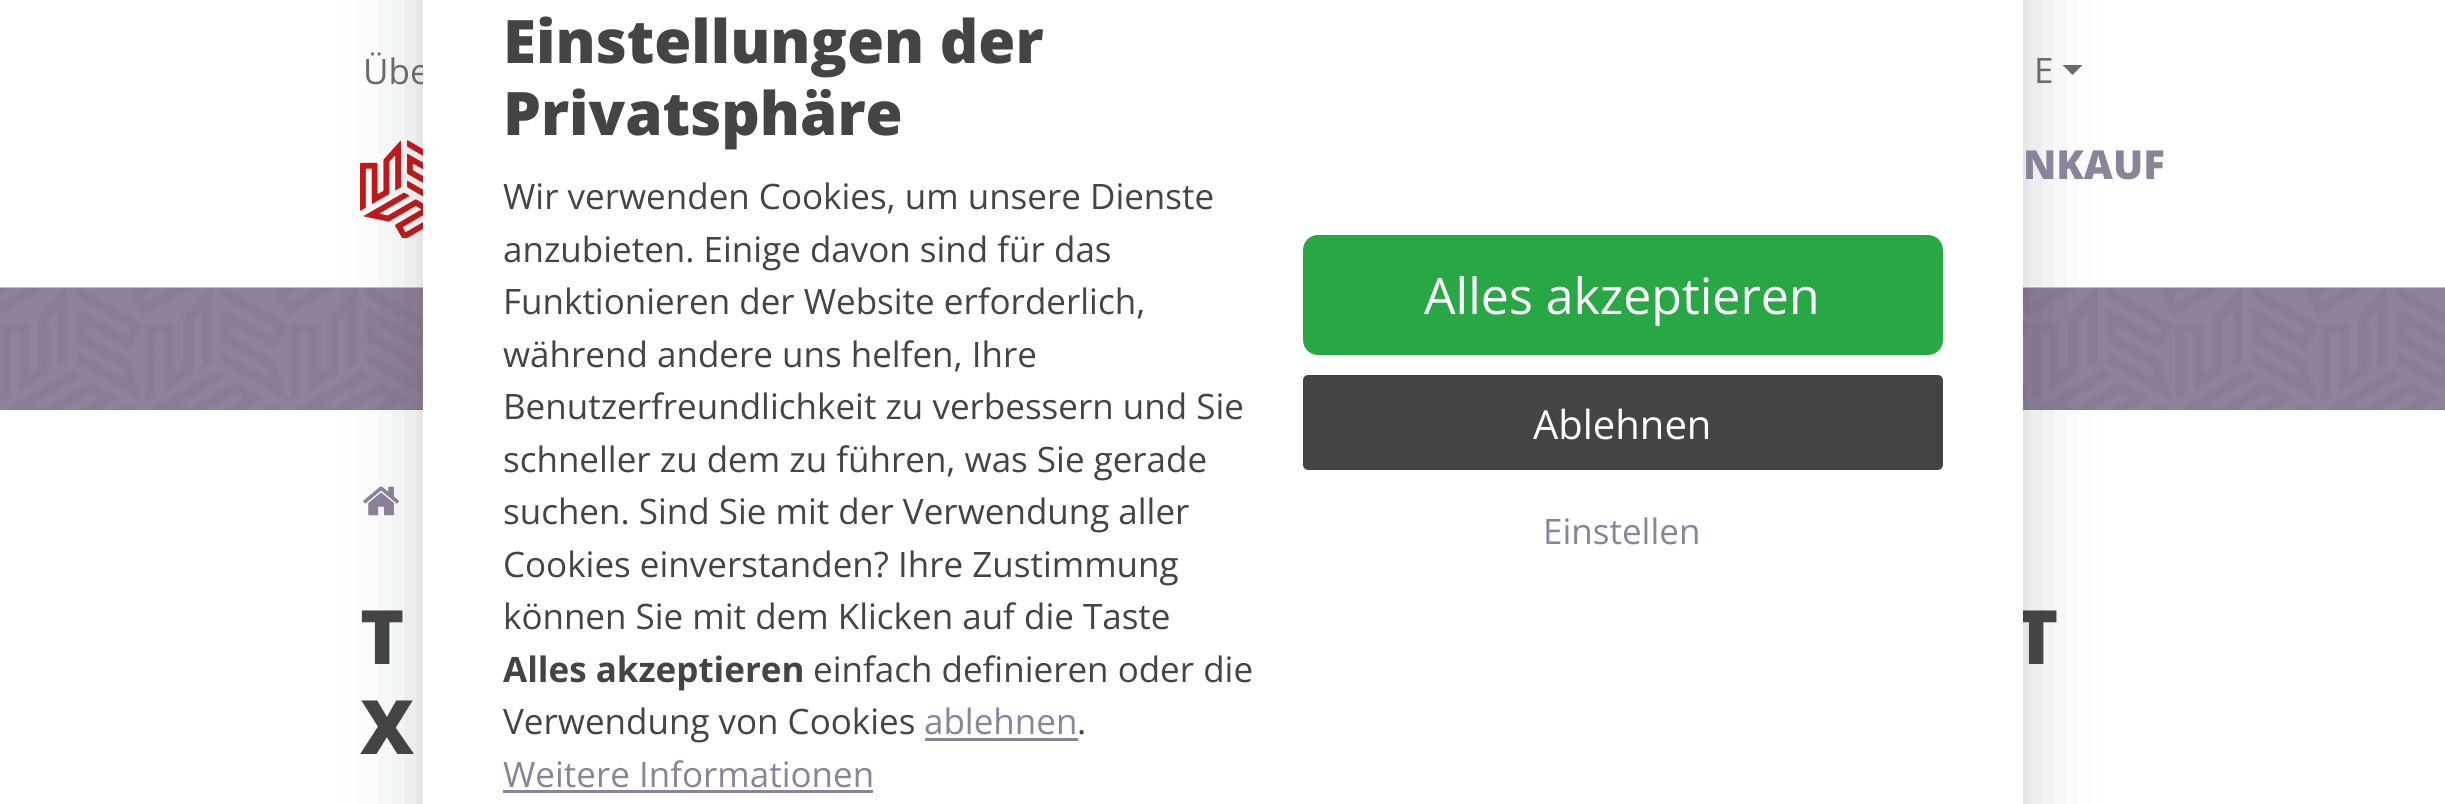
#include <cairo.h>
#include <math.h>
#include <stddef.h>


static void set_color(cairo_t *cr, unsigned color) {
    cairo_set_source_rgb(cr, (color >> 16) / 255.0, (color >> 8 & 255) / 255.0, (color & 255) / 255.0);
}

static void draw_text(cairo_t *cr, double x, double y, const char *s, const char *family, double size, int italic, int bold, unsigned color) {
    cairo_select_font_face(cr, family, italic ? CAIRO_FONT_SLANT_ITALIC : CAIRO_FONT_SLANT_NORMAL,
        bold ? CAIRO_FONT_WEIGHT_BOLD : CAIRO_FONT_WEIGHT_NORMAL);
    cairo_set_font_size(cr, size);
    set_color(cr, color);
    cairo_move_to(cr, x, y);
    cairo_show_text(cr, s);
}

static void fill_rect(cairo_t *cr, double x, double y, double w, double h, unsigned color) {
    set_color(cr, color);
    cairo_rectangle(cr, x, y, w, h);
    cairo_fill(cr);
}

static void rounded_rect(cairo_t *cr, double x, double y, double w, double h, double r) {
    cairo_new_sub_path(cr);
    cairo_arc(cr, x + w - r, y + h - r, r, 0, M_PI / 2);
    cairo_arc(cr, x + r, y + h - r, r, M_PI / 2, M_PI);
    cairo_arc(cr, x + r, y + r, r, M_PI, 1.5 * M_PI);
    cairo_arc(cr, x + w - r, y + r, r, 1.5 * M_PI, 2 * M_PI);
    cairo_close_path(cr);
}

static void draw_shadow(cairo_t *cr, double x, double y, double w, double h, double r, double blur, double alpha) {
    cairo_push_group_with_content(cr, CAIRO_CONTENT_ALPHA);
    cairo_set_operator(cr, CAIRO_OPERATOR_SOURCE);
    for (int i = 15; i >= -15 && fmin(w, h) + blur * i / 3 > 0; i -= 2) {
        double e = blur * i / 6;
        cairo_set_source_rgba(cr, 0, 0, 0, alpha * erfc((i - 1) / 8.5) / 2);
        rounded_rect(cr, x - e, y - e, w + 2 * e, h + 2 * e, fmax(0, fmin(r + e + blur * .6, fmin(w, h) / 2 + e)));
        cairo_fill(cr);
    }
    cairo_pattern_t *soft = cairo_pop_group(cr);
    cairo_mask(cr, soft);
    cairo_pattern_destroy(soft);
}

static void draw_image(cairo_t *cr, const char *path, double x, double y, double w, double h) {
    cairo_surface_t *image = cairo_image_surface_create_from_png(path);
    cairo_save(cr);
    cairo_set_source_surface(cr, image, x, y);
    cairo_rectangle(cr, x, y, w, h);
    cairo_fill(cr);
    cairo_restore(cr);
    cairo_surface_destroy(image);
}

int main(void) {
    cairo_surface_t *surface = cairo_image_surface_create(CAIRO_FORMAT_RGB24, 2445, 804);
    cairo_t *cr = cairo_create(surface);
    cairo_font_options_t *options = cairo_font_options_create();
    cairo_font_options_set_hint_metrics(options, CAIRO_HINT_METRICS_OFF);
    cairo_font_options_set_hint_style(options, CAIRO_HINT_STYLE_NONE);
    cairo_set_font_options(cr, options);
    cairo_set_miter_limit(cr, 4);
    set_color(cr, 0xFFFFFF);
    cairo_paint(cr);
    set_color(cr, 0x6A6B6A);
    cairo_new_path(cr);
    cairo_move_to(cr, 2062.5, 65);
    cairo_line_to(cr, 2082.5, 65);
    cairo_line_to(cr, 2072.5, 75);
    cairo_close_path(cr);
    cairo_fill(cr);
    draw_image(cr, "assets/img1.png", 360, 140, 63, 98);
    draw_image(cr, "assets/img2.png", 0, 287, 2445, 123);
    draw_image(cr, "assets/img3.png", 363, 486, 36, 30);
    set_color(cr, 0x343A40);
    draw_shadow(cr, 423, -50, 1600, 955, 5, 37.5, 0.25);
    draw_text(cr, 363, 84, "Übe", "Open Sans", 35, 0, 0, 0x6A6B6A);
    draw_text(cr, 2014, 664, "T", "Open Sans ExtraBold", 75, 0, 0, 0x444444);
    fill_rect(cr, 423, 0, 1600, 804, 0xFFFFFF);
    draw_text(cr, 503, 63, "Einstellungen der", "Open Sans ExtraBold", 60, 0, 0, 0x444444);
    draw_text(cr, 503, 135, "Privatsphäre", "Open Sans ExtraBold", 60, 0, 0, 0x444444);
    draw_text(cr, 503, 209, "Wir verwenden Cookies, um unsere Dienste", "Open Sans", 35, 0, 0, 0x444444);
    draw_text(cr, 503, 262, "anzubieten. Einige davon sind für das", "Open Sans", 35, 0, 0, 0x444444);
    draw_text(cr, 503, 314, "Funktionieren der Website erforderlich,", "Open Sans", 35, 0, 0, 0x444444);
    draw_text(cr, 503, 367, "während andere uns helfen, Ihre", "Open Sans", 35, 0, 0, 0x444444);
    draw_text(cr, 503, 419, "Benutzerfreundlichkeit zu verbessern und Sie", "Open Sans", 35, 0, 0, 0x444444);
    draw_text(cr, 503, 472, "schneller zu dem zu führen, was Sie gerade", "Open Sans", 35, 0, 0, 0x444444);
    draw_text(cr, 503, 524, "suchen. Sind Sie mit der Verwendung aller", "Open Sans", 35, 0, 0, 0x444444);
    draw_text(cr, 503, 577, "Cookies einverstanden? Ihre Zustimmung", "Open Sans", 35, 0, 0, 0x444444);
    draw_text(cr, 503, 629, "können Sie mit dem Klicken auf die Taste", "Open Sans", 35, 0, 0, 0x444444);
    draw_text(cr, 503, 682, "Alles akzeptieren", "Open Sans", 35, 0, 1, 0x444444);
    draw_text(cr, 813, 682, "einfach definieren oder die", "Open Sans", 35, 0, 0, 0x444444);
    draw_text(cr, 503, 734, "Verwendung von Cookies", "Open Sans", 35, 0, 0, 0x444444);
    draw_text(cr, 924, 734, "ablehnen", "Open Sans", 35, 0, 0, 0x8C8299);
    fill_rect(cr, 925, 738, 153, 3, 0x8C8299);
    draw_text(cr, 1077, 734, ".", "Open Sans", 35, 0, 0, 0x444444);
    draw_text(cr, 503, 787, "Weitere Informationen", "Open Sans", 35, 0, 0, 0x8C8299);
    fill_rect(cr, 503, 790, 370, 3, 0x8C8299);
    set_color(cr, 0x28A745);
    rounded_rect(cr, 1304.5, 236.5, 637, 117, 13.5);
    cairo_fill_preserve(cr);
    cairo_set_line_width(cr, 3);
    cairo_stroke(cr);
    draw_text(cr, 1424, 314, "Alles akzeptieren", "Open Sans", 50, 0, 0, 0xFFFFFF);
    set_color(cr, 0x444444);
    rounded_rect(cr, 1304.5, 376.5, 637, 92, 3.5);
    cairo_fill_preserve(cr);
    cairo_stroke(cr);
    draw_text(cr, 1533, 439, "Ablehnen", "Open Sans", 40, 0, 0, 0xFFFFFF);
    draw_text(cr, 1543, 544, "Einstellen", "Open Sans", 35, 0, 0, 0x8C8299);
    draw_text(cr, 2034, 83, "E", "Open Sans", 35, 0, 0, 0x6A6B6A);
    draw_text(cr, 2023, 179, "NKAUF", "Open Sans ExtraBold", 40, 0, 0, 0x8C8299);
    draw_text(cr, 360, 664, "T", "Open Sans ExtraBold", 75, 0, 0, 0x444444);
    draw_text(cr, 360, 754, "X", "Open Sans ExtraBold", 75, 0, 0, 0x444444);
    cairo_surface_write_to_png(surface, "output.png");
    cairo_font_options_destroy(options);
    cairo_destroy(cr);
    cairo_surface_destroy(surface);
    return 0;
}
